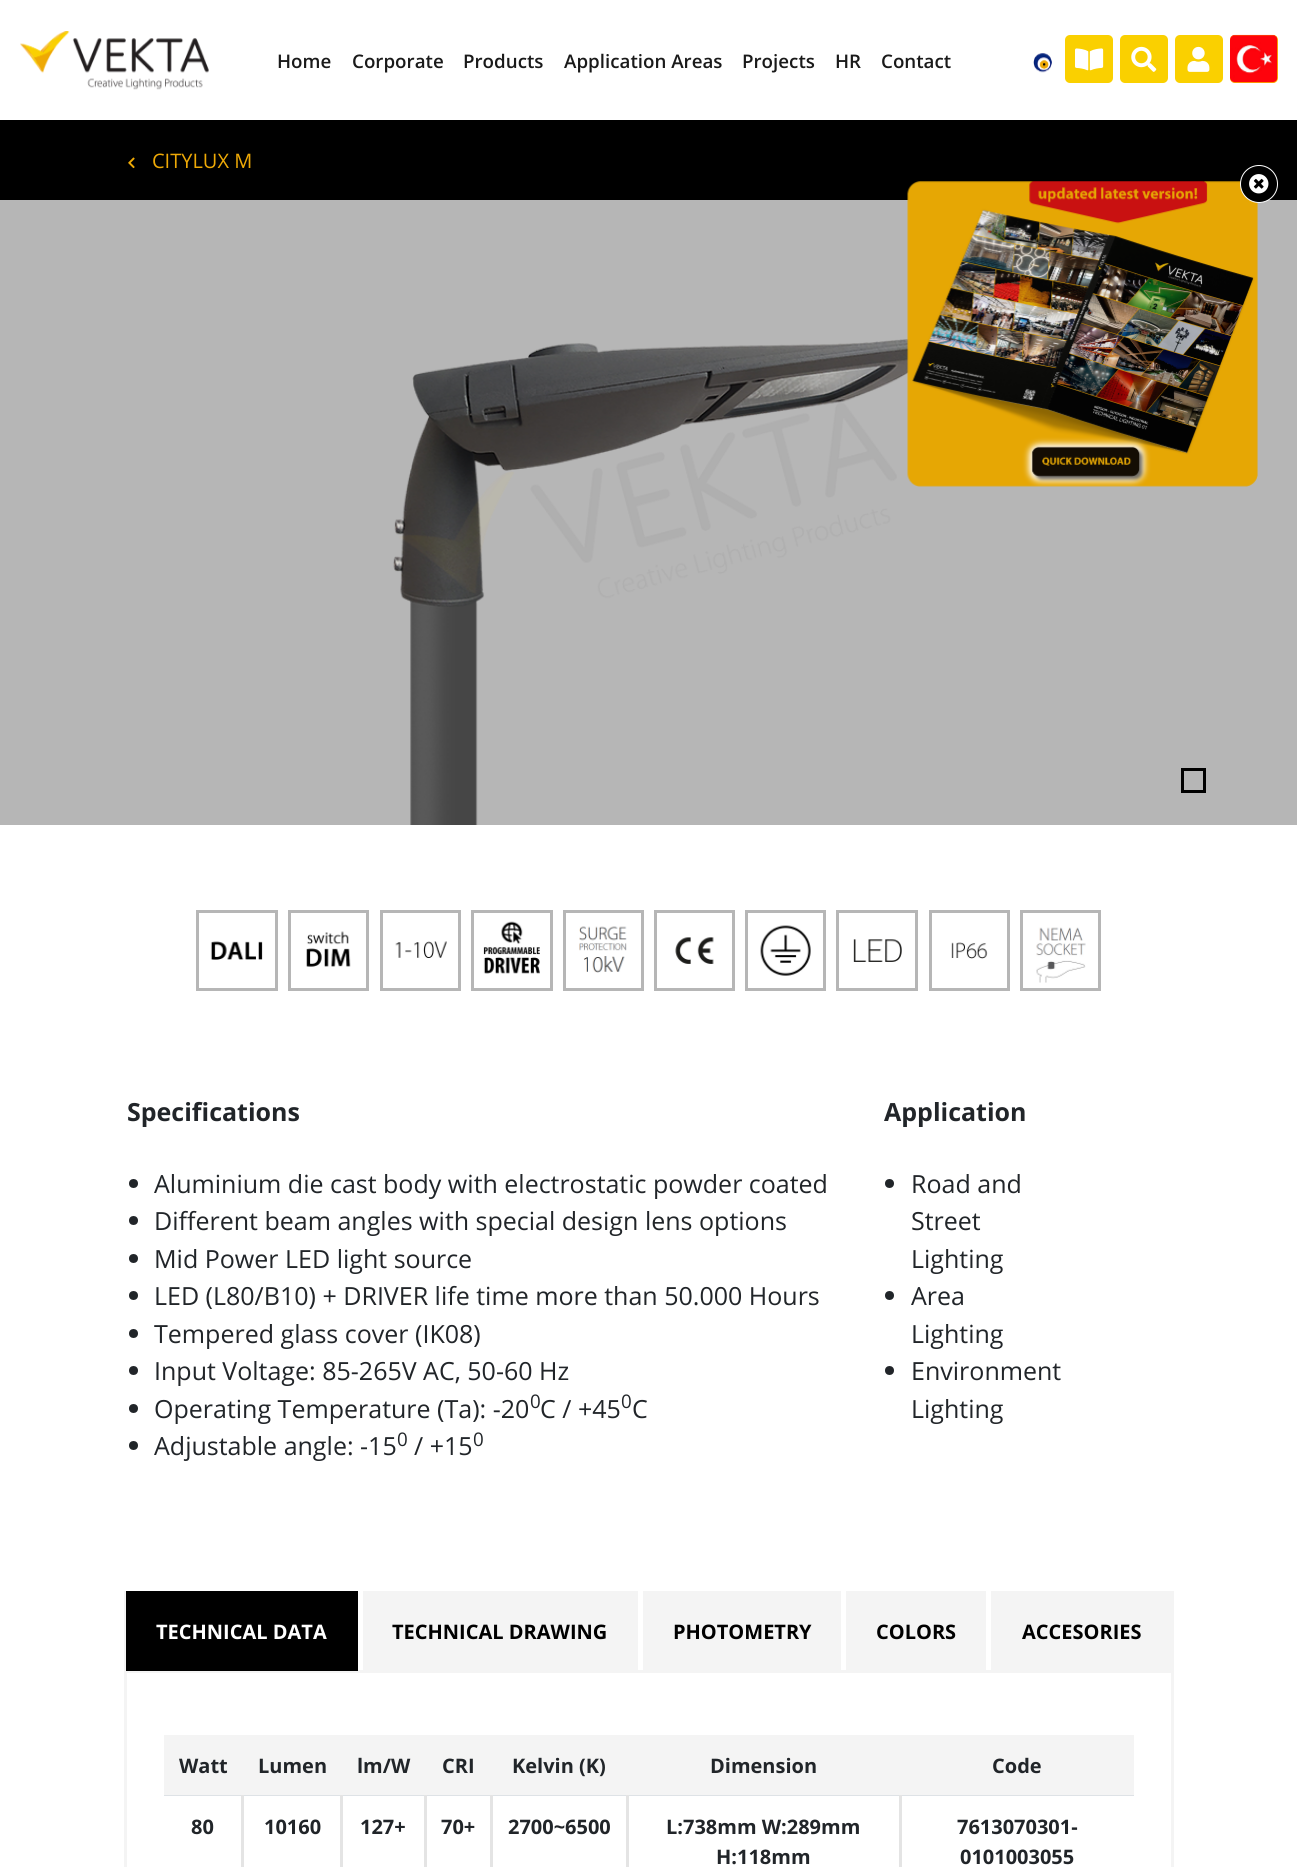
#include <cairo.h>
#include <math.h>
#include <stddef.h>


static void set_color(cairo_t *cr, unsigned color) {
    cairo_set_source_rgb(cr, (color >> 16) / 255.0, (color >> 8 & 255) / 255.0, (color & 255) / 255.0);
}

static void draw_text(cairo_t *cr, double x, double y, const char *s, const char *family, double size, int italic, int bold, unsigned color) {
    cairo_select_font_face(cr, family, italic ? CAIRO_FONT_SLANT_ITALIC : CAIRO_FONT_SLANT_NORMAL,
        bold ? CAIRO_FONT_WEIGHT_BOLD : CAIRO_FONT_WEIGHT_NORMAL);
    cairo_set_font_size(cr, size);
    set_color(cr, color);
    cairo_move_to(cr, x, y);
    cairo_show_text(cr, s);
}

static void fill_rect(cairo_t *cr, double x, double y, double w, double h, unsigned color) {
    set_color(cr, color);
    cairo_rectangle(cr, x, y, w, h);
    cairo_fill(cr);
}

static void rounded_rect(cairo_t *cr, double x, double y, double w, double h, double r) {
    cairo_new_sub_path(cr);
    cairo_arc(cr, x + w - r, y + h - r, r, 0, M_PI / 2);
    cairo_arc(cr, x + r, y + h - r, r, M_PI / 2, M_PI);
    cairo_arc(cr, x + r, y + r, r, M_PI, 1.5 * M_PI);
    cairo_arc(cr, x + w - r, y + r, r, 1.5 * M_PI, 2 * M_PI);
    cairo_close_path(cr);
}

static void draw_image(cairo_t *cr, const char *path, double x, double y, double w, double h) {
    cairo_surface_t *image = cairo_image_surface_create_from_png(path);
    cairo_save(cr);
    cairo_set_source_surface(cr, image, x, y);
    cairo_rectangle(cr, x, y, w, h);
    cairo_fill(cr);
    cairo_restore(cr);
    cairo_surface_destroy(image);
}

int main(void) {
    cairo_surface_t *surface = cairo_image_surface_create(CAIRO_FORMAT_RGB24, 1297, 1867);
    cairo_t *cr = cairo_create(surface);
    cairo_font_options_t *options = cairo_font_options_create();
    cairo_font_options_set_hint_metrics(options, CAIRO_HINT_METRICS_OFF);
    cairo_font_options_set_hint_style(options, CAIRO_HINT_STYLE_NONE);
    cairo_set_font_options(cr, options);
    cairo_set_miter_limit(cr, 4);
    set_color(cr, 0xFFFFFF);
    cairo_paint(cr);
    draw_image(cr, "assets/img1.png", 20, 31, 189, 59);
    draw_text(cr, 277, 68, "Home", "Open Sans SemiBold", 18.75, 0, 0, 0x1A1A1A);
    draw_text(cr, 352, 68, "Corporate", "Open Sans SemiBold", 18.75, 0, 0, 0x1A1A1A);
    draw_text(cr, 463, 68, "Products", "Open Sans SemiBold", 18.75, 0, 0, 0x1A1A1A);
    draw_text(cr, 564, 68, "Application Areas", "Open Sans SemiBold", 18.75, 0, 0, 0x1A1A1A);
    draw_text(cr, 742, 68, "Projects", "Open Sans SemiBold", 18.75, 0, 0, 0x1A1A1A);
    draw_text(cr, 835, 68, "HR", "Open Sans SemiBold", 18.75, 0, 0, 0x1A1A1A);
    draw_text(cr, 881, 68, "Contact", "Open Sans SemiBold", 18.75, 0, 0, 0x1A1A1A);
    draw_image(cr, "assets/img2.png", 1033, 53, 19, 20);
    set_color(cr, 0xFAD000);
    rounded_rect(cr, 1065, 35, 48, 48, 5);
    cairo_fill(cr);
    draw_image(cr, "assets/img3.png", 1075, 48, 29, 23);
    rounded_rect(cr, 1120, 35, 48, 48, 5);
    cairo_fill(cr);
    draw_image(cr, "assets/img4.png", 1131, 46, 26, 26);
    rounded_rect(cr, 1175, 35, 48, 48, 5);
    cairo_fill(cr);
    draw_image(cr, "assets/img5.png", 1187, 46, 23, 26);
    rounded_rect(cr, 1230, 35, 48, 48, 5);
    cairo_fill(cr);
    draw_image(cr, "assets/img6.png", 1230, 34, 48, 49);
    fill_rect(cr, 0, 120, 1297, 80, 0x000000);
    draw_image(cr, "assets/img7.png", 128, 157, 7, 12);
    draw_text(cr, 152, 168, "CITYLUX M", "Open Sans", 20, 0, 0, 0xEEA906);
    fill_rect(cr, 0, 200, 1297, 625, 0xB6B6B6);
    draw_image(cr, "assets/img10.png", 393, 338, 516, 487);
    draw_image(cr, "assets/img8.png", 907, 181, 351, 306);
    set_color(cr, 0x000000);
    cairo_arc(cr, 1259, 184, 18.5, 0, 2 * M_PI);
    cairo_fill_preserve(cr);
    set_color(cr, 0xFFFFFF);
    cairo_set_line_width(cr, 1);
    cairo_stroke(cr);
    draw_image(cr, "assets/img9.png", 1249, 174, 20, 20);
    cairo_rectangle(cr, 1182.5, 769.5, 22, 22);
    set_color(cr, 0x000000);
    cairo_set_line_width(cr, 3);
    cairo_stroke(cr);
    cairo_rectangle(cr, 197.5, 911.5, 79, 78);
    set_color(cr, 0xB6B6B6);
    cairo_stroke(cr);
    cairo_rectangle(cr, 289.5, 911.5, 78, 78);
    cairo_stroke(cr);
    cairo_rectangle(cr, 381.5, 911.5, 78, 78);
    cairo_stroke(cr);
    cairo_rectangle(cr, 472.5, 911.5, 79, 78);
    cairo_stroke(cr);
    cairo_rectangle(cr, 564.5, 911.5, 78, 78);
    cairo_stroke(cr);
    cairo_rectangle(cr, 655.5, 911.5, 78, 78);
    cairo_stroke(cr);
    cairo_rectangle(cr, 746.5, 911.5, 78, 78);
    cairo_stroke(cr);
    cairo_rectangle(cr, 837.5, 911.5, 79, 78);
    cairo_stroke(cr);
    cairo_rectangle(cr, 930.5, 911.5, 78, 78);
    cairo_stroke(cr);
    cairo_rectangle(cr, 1021.5, 911.5, 78, 78);
    cairo_stroke(cr);
    draw_image(cr, "assets/img11.png", 210, 941, 53, 19);
    draw_image(cr, "assets/img12.png", 306, 931, 45, 36);
    draw_image(cr, "assets/img13.png", 395, 941, 52, 17);
    draw_image(cr, "assets/img14.png", 483, 921, 57, 53);
    draw_image(cr, "assets/img15.png", 579, 926, 48, 47);
    draw_image(cr, "assets/img16.png", 675, 937, 39, 27);
    draw_image(cr, "assets/img17.png", 760, 925, 51, 51);
    draw_image(cr, "assets/img18.png", 853, 939, 49, 23);
    draw_image(cr, "assets/img19.png", 951, 942, 37, 17);
    draw_image(cr, "assets/img20.png", 1036, 927, 50, 56);
    draw_text(cr, 127, 1121, "Specifications", "Open Sans", 25, 0, 1, 0x212529);
    cairo_new_path(cr);
    cairo_arc(cr, 133.5, 1183.5, 4.5, 0, 2 * M_PI);
    cairo_fill(cr);
    draw_text(cr, 154, 1193, "Aluminium die cast body with electrostatic powder coated", "Open Sans", 25, 0, 0, 0x212529);
    cairo_new_path(cr);
    cairo_arc(cr, 133.5, 1220.5, 4.5, 0, 2 * M_PI);
    cairo_fill(cr);
    draw_text(cr, 154, 1230, "Different beam angles with special design lens options", "Open Sans", 25, 0, 0, 0x212529);
    cairo_new_path(cr);
    cairo_arc(cr, 133.5, 1258.5, 4.5, 0, 2 * M_PI);
    cairo_fill(cr);
    draw_text(cr, 154, 1268, "Mid Power LED light source", "Open Sans", 25, 0, 0, 0x212529);
    cairo_new_path(cr);
    cairo_arc(cr, 133.5, 1295.5, 4.5, 0, 2 * M_PI);
    cairo_fill(cr);
    draw_text(cr, 154, 1305, "LED (L80/B10) + DRIVER life time more than 50.000 Hours", "Open Sans", 25, 0, 0, 0x212529);
    cairo_new_path(cr);
    cairo_arc(cr, 133.5, 1333.5, 4.5, 0, 2 * M_PI);
    cairo_fill(cr);
    draw_text(cr, 154, 1343, "Tempered glass cover (IK08)", "Open Sans", 25, 0, 0, 0x212529);
    cairo_new_path(cr);
    cairo_arc(cr, 133.5, 1370.5, 4.5, 0, 2 * M_PI);
    cairo_fill(cr);
    draw_text(cr, 154, 1380, "Input Voltage: 85-265V AC, 50-60 Hz", "Open Sans", 25, 0, 0, 0x212529);
    cairo_new_path(cr);
    cairo_arc(cr, 133.5, 1408.5, 4.5, 0, 2 * M_PI);
    cairo_fill(cr);
    draw_text(cr, 154, 1418, "Operating Temperature (Ta): -20", "Open Sans", 25, 0, 0, 0x212529);
    draw_text(cr, 530, 1408, "0", "Open Sans", 18.75, 0, 0, 0x212529);
    draw_text(cr, 540, 1418, "C / +45", "Open Sans", 25, 0, 0, 0x212529);
    draw_text(cr, 621, 1408, "0", "Open Sans", 18.75, 0, 0, 0x212529);
    draw_text(cr, 632, 1418, "C", "Open Sans", 25, 0, 0, 0x212529);
    cairo_new_path(cr);
    cairo_arc(cr, 133.5, 1445.5, 4.5, 0, 2 * M_PI);
    cairo_fill(cr);
    draw_text(cr, 154, 1455, "Adjustable angle: -15", "Open Sans", 25, 0, 0, 0x212529);
    draw_text(cr, 397, 1446, "0", "Open Sans", 18.75, 0, 0, 0x212529);
    draw_text(cr, 414, 1455, "/ +15", "Open Sans", 25, 0, 0, 0x212529);
    draw_text(cr, 473, 1446, "0", "Open Sans", 18.75, 0, 0, 0x212529);
    draw_text(cr, 884, 1121, "Application", "Open Sans", 25, 0, 1, 0x212529);
    cairo_new_path(cr);
    cairo_arc(cr, 889.5, 1183.5, 4.5, 0, 2 * M_PI);
    cairo_fill(cr);
    draw_text(cr, 911, 1193, "Road and", "Open Sans", 25, 0, 0, 0x212529);
    draw_text(cr, 911, 1230, "Street", "Open Sans", 25, 0, 0, 0x212529);
    draw_text(cr, 911, 1268, "Lighting", "Open Sans", 25, 0, 0, 0x212529);
    cairo_new_path(cr);
    cairo_arc(cr, 889.5, 1295.5, 4.5, 0, 2 * M_PI);
    cairo_fill(cr);
    draw_text(cr, 911, 1305, "Area", "Open Sans", 25, 0, 0, 0x212529);
    draw_text(cr, 911, 1343, "Lighting", "Open Sans", 25, 0, 0, 0x212529);
    cairo_new_path(cr);
    cairo_arc(cr, 889.5, 1370.5, 4.5, 0, 2 * M_PI);
    cairo_fill(cr);
    draw_text(cr, 911, 1380, "Environment", "Open Sans", 25, 0, 0, 0x212529);
    draw_text(cr, 911, 1418, "Lighting", "Open Sans", 25, 0, 0, 0x212529);
    fill_rect(cr, 1171, 1591, 3, 276, 0xF4F4F4);
    fill_rect(cr, 124, 1591, 3, 276, 0xF4F4F4);
    fill_rect(cr, 126, 1670, 1045, 3, 0xF4F4F4);
    fill_rect(cr, 126, 1591, 232, 80, 0x000000);
    draw_text(cr, 156, 1639, "TECHNICAL DATA", "Open Sans", 20, 0, 1, 0xFFFFFF);
    fill_rect(cr, 363, 1591, 275, 79, 0xF4F4F4);
    draw_text(cr, 392, 1639, "TECHNICAL DRAWING", "Open Sans", 20, 0, 1, 0x000000);
    fill_rect(cr, 643, 1591, 198, 79, 0xF4F4F4);
    draw_text(cr, 673, 1639, "PHOTOMETRY", "Open Sans", 20, 0, 1, 0x000000);
    fill_rect(cr, 846, 1591, 140, 79, 0xF4F4F4);
    draw_text(cr, 876, 1639, "COLORS", "Open Sans", 20, 0, 1, 0x000000);
    fill_rect(cr, 991, 1591, 180, 79, 0xF4F4F4);
    draw_text(cr, 1022, 1639, "ACCESORIES", "Open Sans", 20, 0, 1, 0x000000);
    fill_rect(cr, 164, 1735, 970, 60, 0xF4F4F4);
    draw_text(cr, 179, 1773, "Watt", "Open Sans", 20, 0, 1, 0x212529);
    draw_text(cr, 258, 1773, "Lumen", "Open Sans", 20, 0, 1, 0x212529);
    draw_text(cr, 357, 1773, "lm/W", "Open Sans", 20, 0, 1, 0x212529);
    draw_text(cr, 442, 1773, "CRI", "Open Sans", 20, 0, 1, 0x212529);
    draw_text(cr, 512, 1773, "Kelvin (K)", "Open Sans", 20, 0, 1, 0x212529);
    draw_text(cr, 710, 1773, "Dimension", "Open Sans", 20, 0, 1, 0x212529);
    draw_text(cr, 992, 1773, "Code", "Open Sans", 20, 0, 1, 0x212529);
    draw_text(cr, 191, 1834, "80", "Open Sans", 20, 0, 1, 0x212529);
    fill_rect(cr, 164, 1795, 970, 1, 0xDEE2E6);
    fill_rect(cr, 241, 1795, 3, 72, 0xE4E4E4);
    draw_text(cr, 264, 1834, "10160", "Open Sans", 20, 0, 1, 0x212529);
    fill_rect(cr, 340, 1795, 3, 72, 0xE4E4E4);
    draw_text(cr, 360, 1834, "127+", "Open Sans", 20, 0, 1, 0x212529);
    fill_rect(cr, 424, 1795, 3, 72, 0xE4E4E4);
    draw_text(cr, 441, 1834, "70+", "Open Sans", 20, 0, 1, 0x212529);
    fill_rect(cr, 490, 1795, 3, 72, 0xE4E4E4);
    draw_text(cr, 508, 1834, "2700~6500", "Open Sans", 20, 0, 1, 0x212529);
    fill_rect(cr, 626, 1795, 3, 72, 0xE4E4E4);
    draw_text(cr, 666, 1834, "L:738mm W:289mm", "Open Sans", 20, 0, 1, 0x212529);
    draw_text(cr, 716, 1864, "H:118mm", "Open Sans", 20, 0, 1, 0x212529);
    fill_rect(cr, 899, 1795, 3, 72, 0xE4E4E4);
    draw_text(cr, 957, 1834, "7613070301-", "Open Sans", 20, 0, 1, 0x212529);
    draw_text(cr, 960, 1864, "0101003055", "Open Sans", 20, 0, 1, 0x212529);
    cairo_surface_write_to_png(surface, "output.png");
    cairo_font_options_destroy(options);
    cairo_destroy(cr);
    cairo_surface_destroy(surface);
    return 0;
}
